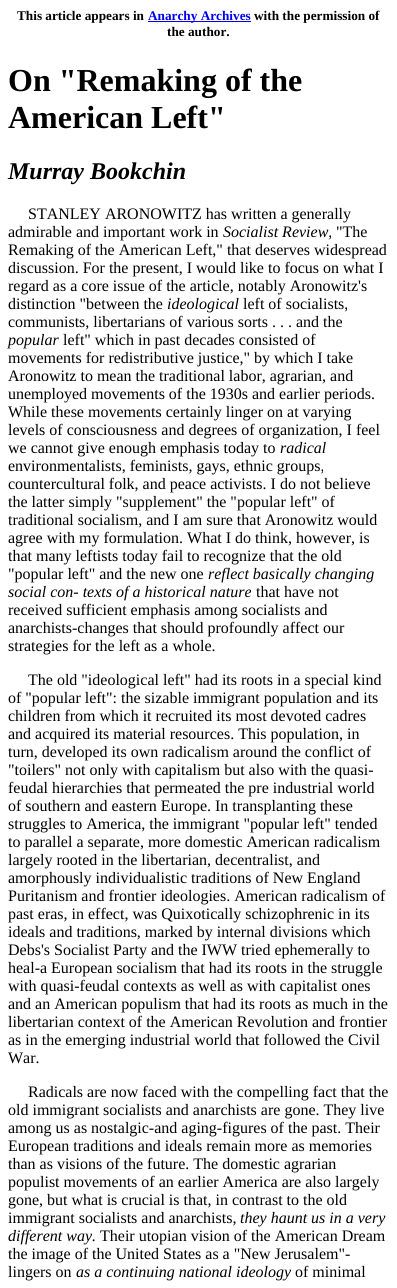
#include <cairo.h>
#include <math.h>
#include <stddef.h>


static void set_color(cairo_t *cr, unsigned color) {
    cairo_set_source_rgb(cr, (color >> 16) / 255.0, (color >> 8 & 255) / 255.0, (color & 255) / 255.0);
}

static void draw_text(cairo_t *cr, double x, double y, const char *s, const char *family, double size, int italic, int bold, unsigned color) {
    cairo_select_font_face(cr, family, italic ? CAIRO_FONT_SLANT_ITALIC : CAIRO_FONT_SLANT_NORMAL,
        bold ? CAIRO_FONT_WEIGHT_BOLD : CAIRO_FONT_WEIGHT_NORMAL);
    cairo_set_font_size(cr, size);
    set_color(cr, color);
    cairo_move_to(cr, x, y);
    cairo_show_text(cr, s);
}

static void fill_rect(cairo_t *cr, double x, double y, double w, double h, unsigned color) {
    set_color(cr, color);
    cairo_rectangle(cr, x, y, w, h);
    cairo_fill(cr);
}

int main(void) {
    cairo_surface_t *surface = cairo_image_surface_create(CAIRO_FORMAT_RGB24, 397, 1288);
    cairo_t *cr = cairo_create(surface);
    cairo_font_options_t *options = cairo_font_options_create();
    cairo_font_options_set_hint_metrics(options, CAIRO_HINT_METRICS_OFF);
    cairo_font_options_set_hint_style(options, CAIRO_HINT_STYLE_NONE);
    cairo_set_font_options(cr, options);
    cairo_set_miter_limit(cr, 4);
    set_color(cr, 0xFFFFFF);
    cairo_paint(cr);
    draw_text(cr, 17, 20, "This article appears in", "Liberation Serif", 13.25, 0, 1, 0x000000);
    fill_rect(cr, 148, 21, 103, 1, 0x0000EE);
    draw_text(cr, 148, 20, "Anarchy Archives", "Liberation Serif", 13.25, 0, 1, 0x0000EE);
    draw_text(cr, 254, 20, "with the permission of", "Liberation Serif", 13.25, 0, 1, 0x000000);
    draw_text(cr, 167, 36, "the author.", "Liberation Serif", 13.25, 0, 1, 0x000000);
    draw_text(cr, 8, 91, "On \"Remaking of the", "Liberation Serif", 32, 0, 1, 0x000000);
    draw_text(cr, 8, 128, "American Left\"", "Liberation Serif", 32, 0, 1, 0x000000);
    draw_text(cr, 8, 179, "Murray Bookchin", "Liberation Serif", 24, 1, 1, 0x000000);
    draw_text(cr, 28, 219, "STANLEY ARONOWITZ has written a generally", "Liberation Serif", 16, 0, 0, 0x000000);
    draw_text(cr, 8, 237, "admirable and important work in", "Liberation Serif", 16, 0, 0, 0x000000);
    draw_text(cr, 223, 237, "Socialist Review,", "Liberation Serif", 16, 1, 0, 0x000000);
    draw_text(cr, 336, 237, "\"The", "Liberation Serif", 16, 0, 0, 0x000000);
    draw_text(cr, 8, 255, "Remaking of the American Left,\" that deserves widespread", "Liberation Serif", 16, 0, 0, 0x000000);
    draw_text(cr, 8, 273, "discussion. For the present, I would like to focus on what I", "Liberation Serif", 16, 0, 0, 0x000000);
    draw_text(cr, 8, 291, "regard as a core issue of the article, notably Aronowitz's", "Liberation Serif", 16, 0, 0, 0x000000);
    draw_text(cr, 8, 309, "distinction \"between the", "Liberation Serif", 16, 0, 0, 0x000000);
    draw_text(cr, 167, 309, "ideological", "Liberation Serif", 16, 1, 0, 0x000000);
    draw_text(cr, 243, 309, "left of socialists,", "Liberation Serif", 16, 0, 0, 0x000000);
    draw_text(cr, 8, 327, "communists, libertarians of various sorts . . . and the", "Liberation Serif", 16, 0, 0, 0x000000);
    draw_text(cr, 8, 345, "popular", "Liberation Serif", 16, 1, 0, 0x000000);
    draw_text(cr, 63, 345, "left\" which in past decades consisted of", "Liberation Serif", 16, 0, 0, 0x000000);
    draw_text(cr, 8, 363, "movements for redistributive justice,\" by which I take", "Liberation Serif", 16, 0, 0, 0x000000);
    draw_text(cr, 8, 381, "Aronowitz to mean the traditional labor, agrarian, and", "Liberation Serif", 16, 0, 0, 0x000000);
    draw_text(cr, 8, 399, "unemployed movements of the 1930s and earlier periods.", "Liberation Serif", 16, 0, 0, 0x000000);
    draw_text(cr, 8, 417, "While these movements certainly linger on at varying", "Liberation Serif", 16, 0, 0, 0x000000);
    draw_text(cr, 8, 435, "levels of consciousness and degrees of organization, I feel", "Liberation Serif", 16, 0, 0, 0x000000);
    draw_text(cr, 8, 453, "we cannot give enough emphasis today to", "Liberation Serif", 16, 0, 0, 0x000000);
    draw_text(cr, 280, 453, "radical", "Liberation Serif", 16, 1, 0, 0x000000);
    draw_text(cr, 8, 471, "environmentalists, feminists, gays, ethnic groups,", "Liberation Serif", 16, 0, 0, 0x000000);
    draw_text(cr, 8, 489, "countercultural folk, and peace activists. I do not believe", "Liberation Serif", 16, 0, 0, 0x000000);
    draw_text(cr, 8, 507, "the latter simply \"supplement\" the \"popular left\" of", "Liberation Serif", 16, 0, 0, 0x000000);
    draw_text(cr, 8, 525, "traditional socialism, and I am sure that Aronowitz would", "Liberation Serif", 16, 0, 0, 0x000000);
    draw_text(cr, 8, 543, "agree with my formulation. What I do think, however, is", "Liberation Serif", 16, 0, 0, 0x000000);
    draw_text(cr, 8, 561, "that many leftists today fail to recognize that the old", "Liberation Serif", 16, 0, 0, 0x000000);
    draw_text(cr, 8, 579, "\"popular left\" and the new one", "Liberation Serif", 16, 0, 0, 0x000000);
    draw_text(cr, 208, 579, "reflect basically changing", "Liberation Serif", 16, 1, 0, 0x000000);
    draw_text(cr, 8, 597, "social con- texts of a historical nature", "Liberation Serif", 16, 1, 0, 0x000000);
    draw_text(cr, 256, 597, "that have not", "Liberation Serif", 16, 0, 0, 0x000000);
    draw_text(cr, 8, 615, "received sufficient emphasis among socialists and", "Liberation Serif", 16, 0, 0, 0x000000);
    draw_text(cr, 8, 633, "anarchists-changes that should profoundly affect our", "Liberation Serif", 16, 0, 0, 0x000000);
    draw_text(cr, 8, 651, "strategies for the left as a whole.", "Liberation Serif", 16, 0, 0, 0x000000);
    draw_text(cr, 28, 685, "The old \"ideological left\" had its roots in a special kind", "Liberation Serif", 16, 0, 0, 0x000000);
    draw_text(cr, 8, 703, "of \"popular left\": the sizable immigrant population and its", "Liberation Serif", 16, 0, 0, 0x000000);
    draw_text(cr, 8, 721, "children from which it recruited its most devoted cadres", "Liberation Serif", 16, 0, 0, 0x000000);
    draw_text(cr, 8, 739, "and acquired its material resources. This population, in", "Liberation Serif", 16, 0, 0, 0x000000);
    draw_text(cr, 8, 757, "turn, developed its own radicalism around the conflict of", "Liberation Serif", 16, 0, 0, 0x000000);
    draw_text(cr, 8, 775, "\"toilers\" not only with capitalism but also with the quasi-", "Liberation Serif", 16, 0, 0, 0x000000);
    draw_text(cr, 8, 793, "feudal hierarchies that permeated the pre industrial world", "Liberation Serif", 16, 0, 0, 0x000000);
    draw_text(cr, 8, 811, "of southern and eastern Europe. In transplanting these", "Liberation Serif", 16, 0, 0, 0x000000);
    draw_text(cr, 8, 829, "struggles to America, the immigrant \"popular left\" tended", "Liberation Serif", 16, 0, 0, 0x000000);
    draw_text(cr, 8, 847, "to parallel a separate, more domestic American radicalism", "Liberation Serif", 16, 0, 0, 0x000000);
    draw_text(cr, 8, 865, "largely rooted in the libertarian, decentralist, and", "Liberation Serif", 16, 0, 0, 0x000000);
    draw_text(cr, 8, 883, "amorphously individualistic traditions of New England", "Liberation Serif", 16, 0, 0, 0x000000);
    draw_text(cr, 8, 901, "Puritanism and frontier ideologies. American radicalism of", "Liberation Serif", 16, 0, 0, 0x000000);
    draw_text(cr, 8, 919, "past eras, in effect, was Quixotically schizophrenic in its", "Liberation Serif", 16, 0, 0, 0x000000);
    draw_text(cr, 8, 937, "ideals and traditions, marked by internal divisions which", "Liberation Serif", 16, 0, 0, 0x000000);
    draw_text(cr, 8, 955, "Debs's Socialist Party and the IWW tried ephemerally to", "Liberation Serif", 16, 0, 0, 0x000000);
    draw_text(cr, 8, 973, "heal-a European socialism that had its roots in the struggle", "Liberation Serif", 16, 0, 0, 0x000000);
    draw_text(cr, 8, 991, "with quasi-feudal contexts as well as with capitalist ones", "Liberation Serif", 16, 0, 0, 0x000000);
    draw_text(cr, 8, 1009, "and an American populism that had its roots as much in the", "Liberation Serif", 16, 0, 0, 0x000000);
    draw_text(cr, 8, 1027, "libertarian context of the American Revolution and frontier", "Liberation Serif", 16, 0, 0, 0x000000);
    draw_text(cr, 8, 1045, "as in the emerging industrial world that followed the Civil", "Liberation Serif", 16, 0, 0, 0x000000);
    draw_text(cr, 8, 1063, "War.", "Liberation Serif", 16, 0, 0, 0x000000);
    draw_text(cr, 28, 1097, "Radicals are now faced with the compelling fact that the", "Liberation Serif", 16, 0, 0, 0x000000);
    draw_text(cr, 8, 1115, "old immigrant socialists and anarchists are gone. They live", "Liberation Serif", 16, 0, 0, 0x000000);
    draw_text(cr, 8, 1133, "among us as nostalgic-and aging-figures of the past. Their", "Liberation Serif", 16, 0, 0, 0x000000);
    draw_text(cr, 8, 1151, "European traditions and ideals remain more as memories", "Liberation Serif", 16, 0, 0, 0x000000);
    draw_text(cr, 8, 1169, "than as visions of the future. The domestic agrarian", "Liberation Serif", 16, 0, 0, 0x000000);
    draw_text(cr, 8, 1187, "populist movements of an earlier America are also largely", "Liberation Serif", 16, 0, 0, 0x000000);
    draw_text(cr, 8, 1205, "gone, but what is crucial is that, in contrast to the old", "Liberation Serif", 16, 0, 0, 0x000000);
    draw_text(cr, 8, 1223, "immigrant socialists and anarchists,", "Liberation Serif", 16, 0, 0, 0x000000);
    draw_text(cr, 240, 1223, "they haunt us in a very", "Liberation Serif", 16, 1, 0, 0x000000);
    draw_text(cr, 8, 1241, "different way.", "Liberation Serif", 16, 1, 0, 0x000000);
    draw_text(cr, 100, 1241, "Their utopian vision of the American Dream", "Liberation Serif", 16, 0, 0, 0x000000);
    draw_text(cr, 8, 1259, "the image of the United States as a \"New Jerusalem\"-", "Liberation Serif", 16, 0, 0, 0x000000);
    draw_text(cr, 8, 1277, "lingers on", "Liberation Serif", 16, 0, 0, 0x000000);
    draw_text(cr, 76, 1277, "as a continuing national ideology", "Liberation Serif", 16, 1, 0, 0x000000);
    draw_text(cr, 295, 1277, "of minimal", "Liberation Serif", 16, 0, 0, 0x000000);
    cairo_surface_write_to_png(surface, "output.png");
    cairo_font_options_destroy(options);
    cairo_destroy(cr);
    cairo_surface_destroy(surface);
    return 0;
}
